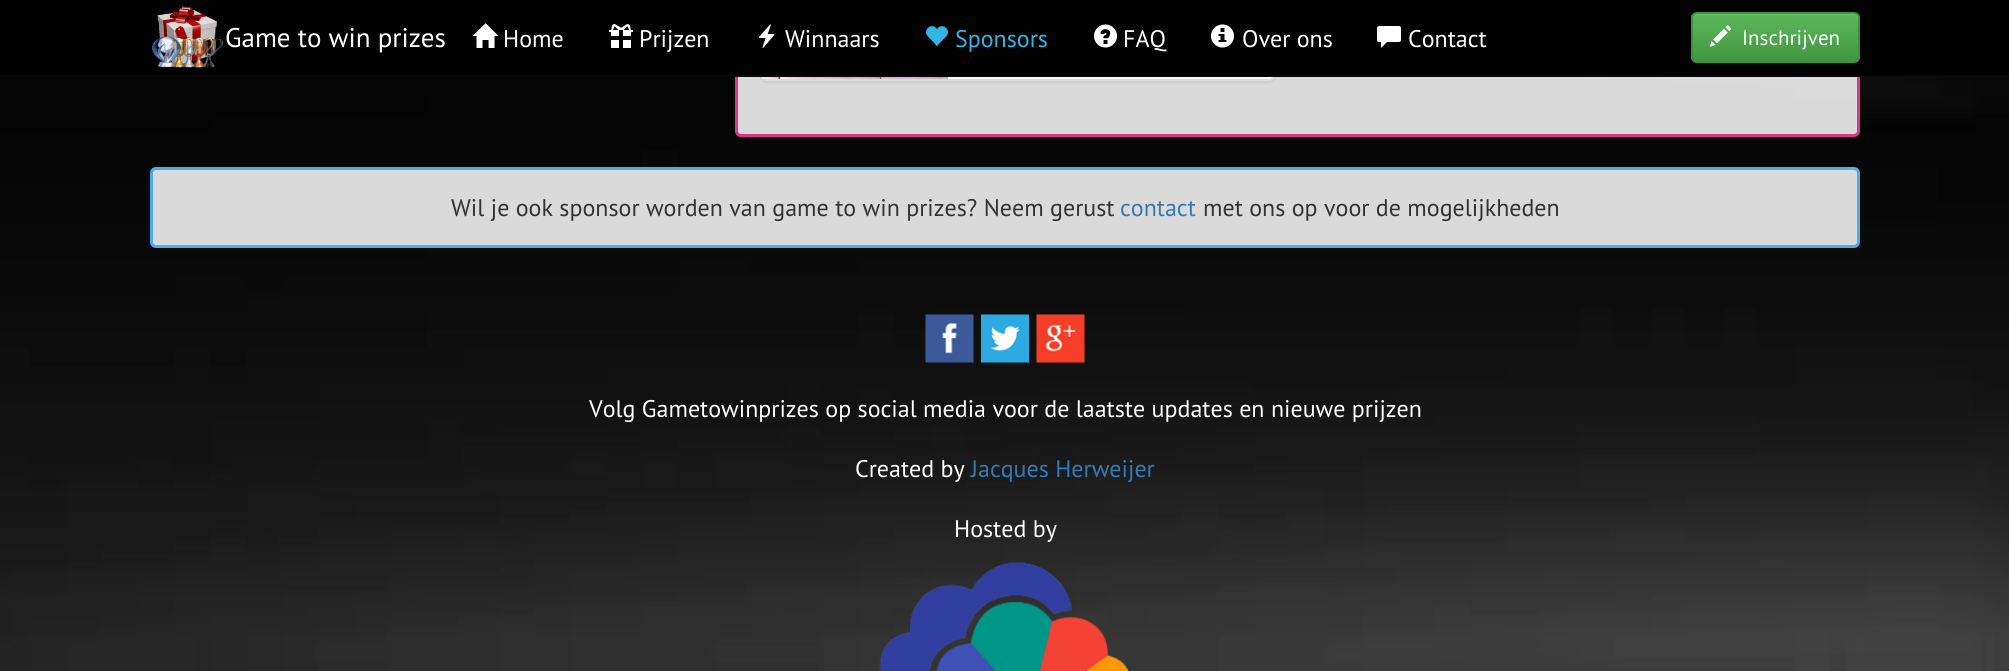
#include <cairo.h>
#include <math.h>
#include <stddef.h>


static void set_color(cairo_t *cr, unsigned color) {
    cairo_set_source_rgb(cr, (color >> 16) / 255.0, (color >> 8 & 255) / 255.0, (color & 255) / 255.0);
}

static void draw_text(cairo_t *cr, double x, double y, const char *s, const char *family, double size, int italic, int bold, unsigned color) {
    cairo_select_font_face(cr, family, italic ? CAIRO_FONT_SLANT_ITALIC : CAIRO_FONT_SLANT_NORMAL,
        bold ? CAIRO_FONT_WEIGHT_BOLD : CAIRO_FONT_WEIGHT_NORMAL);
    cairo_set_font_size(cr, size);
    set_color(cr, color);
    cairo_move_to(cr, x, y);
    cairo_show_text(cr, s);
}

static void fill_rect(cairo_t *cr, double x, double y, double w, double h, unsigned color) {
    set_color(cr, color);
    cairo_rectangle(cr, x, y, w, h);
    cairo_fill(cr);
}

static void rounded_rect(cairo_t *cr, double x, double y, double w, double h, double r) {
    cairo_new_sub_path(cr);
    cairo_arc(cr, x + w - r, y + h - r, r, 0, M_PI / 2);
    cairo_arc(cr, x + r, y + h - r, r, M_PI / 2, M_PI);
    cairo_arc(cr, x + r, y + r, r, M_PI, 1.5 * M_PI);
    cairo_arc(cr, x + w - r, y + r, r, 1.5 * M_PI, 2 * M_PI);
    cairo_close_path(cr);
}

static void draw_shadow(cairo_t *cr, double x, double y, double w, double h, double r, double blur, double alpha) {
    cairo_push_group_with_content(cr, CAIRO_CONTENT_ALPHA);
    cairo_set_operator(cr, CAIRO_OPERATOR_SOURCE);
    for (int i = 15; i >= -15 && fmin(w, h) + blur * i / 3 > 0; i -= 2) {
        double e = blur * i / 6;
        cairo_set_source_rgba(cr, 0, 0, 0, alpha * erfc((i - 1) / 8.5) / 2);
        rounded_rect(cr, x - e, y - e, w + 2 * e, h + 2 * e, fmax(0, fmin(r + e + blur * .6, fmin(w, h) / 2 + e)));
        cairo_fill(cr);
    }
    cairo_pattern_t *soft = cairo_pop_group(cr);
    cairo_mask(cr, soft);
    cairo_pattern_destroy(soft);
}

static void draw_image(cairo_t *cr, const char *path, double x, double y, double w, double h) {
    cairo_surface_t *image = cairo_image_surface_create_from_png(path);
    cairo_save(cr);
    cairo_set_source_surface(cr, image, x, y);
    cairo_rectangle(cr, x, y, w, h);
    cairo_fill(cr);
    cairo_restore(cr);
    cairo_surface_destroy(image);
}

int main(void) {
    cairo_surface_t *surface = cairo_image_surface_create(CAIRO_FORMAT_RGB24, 2009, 671);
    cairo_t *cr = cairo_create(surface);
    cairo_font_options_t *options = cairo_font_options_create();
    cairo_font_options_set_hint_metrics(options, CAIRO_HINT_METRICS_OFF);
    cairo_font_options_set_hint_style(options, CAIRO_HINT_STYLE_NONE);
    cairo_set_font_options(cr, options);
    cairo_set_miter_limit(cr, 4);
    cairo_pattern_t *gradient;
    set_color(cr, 0xFFFFFF);
    cairo_paint(cr);
    draw_image(cr, "assets/img10.png", 0, 77, 2009, 594);
    cairo_set_source_rgba(cr, 1, 1, 1, 0.85);
    rounded_rect(cr, 736.5, -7.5, 1122, 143, 4.5);
    cairo_fill_preserve(cr);
    set_color(cr, 0xD73986);
    cairo_set_line_width(cr, 3);
    cairo_stroke(cr);
    set_color(cr, 0x000000);
    draw_shadow(cr, 761, -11, 514, 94, 6, 1.5, 0.07);
    set_color(cr, 0xFFFFFF);
    rounded_rect(cr, 762, -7, 512, 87, 5);
    cairo_fill_preserve(cr);
    set_color(cr, 0xDDDDDD);
    cairo_set_line_width(cr, 2);
    cairo_stroke(cr);
    fill_rect(cr, 0, 0, 2009, 75, 0x020202);
    fill_rect(cr, 0, 75, 2009, 2, 0x080808);
    draw_image(cr, "assets/img1.png", 151, 6, 73, 62);
    draw_text(cr, 225, 47, "Game to win prizes", "PT Sans", 27, 0, 0, 0xFFFFFF);
    draw_image(cr, "assets/img2.png", 472, 23, 27, 25);
    draw_text(cr, 503, 47, "Home", "PT Sans", 24, 0, 0, 0xFFFFFF);
    draw_image(cr, "assets/img3.png", 609, 24, 24, 24);
    draw_text(cr, 639, 47, "Prijzen", "PT Sans", 24, 0, 0, 0xFFFFFF);
    draw_image(cr, "assets/img4.png", 759, 24, 16, 24);
    draw_text(cr, 785, 47, "Winnaars", "PT Sans", 24, 0, 0, 0xFFFFFF);
    draw_image(cr, "assets/img5.png", 926, 26, 22, 21);
    draw_text(cr, 955, 47, "Sponsors", "PT Sans", 24, 0, 0, 0x33B5E5);
    draw_image(cr, "assets/img6.png", 1094, 24, 23, 24);
    draw_text(cr, 1123, 47, "FAQ", "PT Sans", 24, 0, 0, 0xFFFFFF);
    draw_image(cr, "assets/img7.png", 1211, 24, 23, 24);
    draw_text(cr, 1242, 47, "Over ons", "PT Sans", 24, 0, 0, 0xFFFFFF);
    draw_image(cr, "assets/img8.png", 1377, 26, 24, 22);
    draw_text(cr, 1408, 47, "Contact", "PT Sans", 24, 0, 0, 0xFFFFFF);
    cairo_save(cr);
    rounded_rect(cr, 1691, 12, 169, 51, 6);
    cairo_clip(cr);
    gradient = cairo_pattern_create_linear(1775, 13, 1775, 62);
    cairo_pattern_add_color_stop_rgba(gradient, 0, 0.361, 0.722, 0.361, 1);
    cairo_pattern_add_color_stop_rgba(gradient, 1, 0.255, 0.588, 0.255, 1);
    cairo_set_source(cr, gradient);
    cairo_pattern_destroy(gradient);
    cairo_rectangle(cr, 1691, 14, 169, 48);
    cairo_fill(cr);
    cairo_restore(cr);
    cairo_set_source_rgba(cr, 1, 1, 1, 0.15);
    cairo_new_path(cr);
    cairo_move_to(cr, 1696, 15);
    cairo_line_to(cr, 1854, 15);
    cairo_curve_to(cr, 1856, 15, 1858, 17, 1858, 20);
    cairo_line_to(cr, 1858, 58);
    cairo_line_to(cr, 1857, 61);
    cairo_curve_to(cr, 1858, 60, 1859, 58, 1859, 57);
    cairo_line_to(cr, 1859, 19);
    cairo_curve_to(cr, 1859, 16, 1857, 14, 1854, 14);
    cairo_line_to(cr, 1697, 14);
    cairo_curve_to(cr, 1694, 14, 1692, 16, 1692, 19);
    cairo_line_to(cr, 1692, 20);
    cairo_curve_to(cr, 1692, 17, 1694, 15, 1696, 15);
    cairo_close_path(cr);
    cairo_fill(cr);
    rounded_rect(cr, 1692, 13, 167, 49, 5);
    set_color(cr, 0x3E8F3E);
    cairo_stroke(cr);
    draw_image(cr, "assets/img9.png", 1709, 25, 23, 22);
    draw_text(cr, 1742, 45, "Inschrijven", "PT Sans", 21, 0, 0, 0xFFFFFF);
    draw_image(cr, "assets/img11.png", 762, 77, 186, 2);
    cairo_set_source_rgba(cr, 1, 1, 1, 0.85);
    rounded_rect(cr, 151.5, 168.5, 1707, 78, 4.5);
    cairo_fill_preserve(cr);
    set_color(cr, 0x4BADEE);
    cairo_set_line_width(cr, 3);
    cairo_stroke(cr);
    draw_text(cr, 451, 216, "Wil je ook sponsor worden van game to win prizes? Neem gerust", "PT Sans", 24, 0, 0, 0x333333);
    draw_text(cr, 1120, 216, "contact", "PT Sans", 24, 0, 0, 0x337AB7);
    draw_text(cr, 1203, 216, "met ons op voor de mogelijkheden", "PT Sans", 24, 0, 0, 0x333333);
    draw_image(cr, "assets/img12.png", 925, 314, 49, 49);
    draw_image(cr, "assets/img13.png", 981, 314, 48, 49);
    draw_image(cr, "assets/img14.png", 1036, 314, 49, 49);
    draw_text(cr, 589, 417, "Volg Gametowinprizes op social media voor de laatste updates en nieuwe prijzen", "PT Sans", 24, 0, 0, 0xFFFFFF);
    draw_text(cr, 855, 477, "Created by", "PT Sans", 24, 0, 0, 0xFFFFFF);
    draw_text(cr, 971, 477, "Jacques Herweijer", "PT Sans", 24, 0, 0, 0x337AB7);
    draw_text(cr, 954, 537, "Hosted by", "PT Sans", 24, 0, 0, 0xFFFFFF);
    draw_image(cr, "assets/img15.png", 879, 562, 250, 109);
    cairo_surface_write_to_png(surface, "output.png");
    cairo_font_options_destroy(options);
    cairo_destroy(cr);
    cairo_surface_destroy(surface);
    return 0;
}
